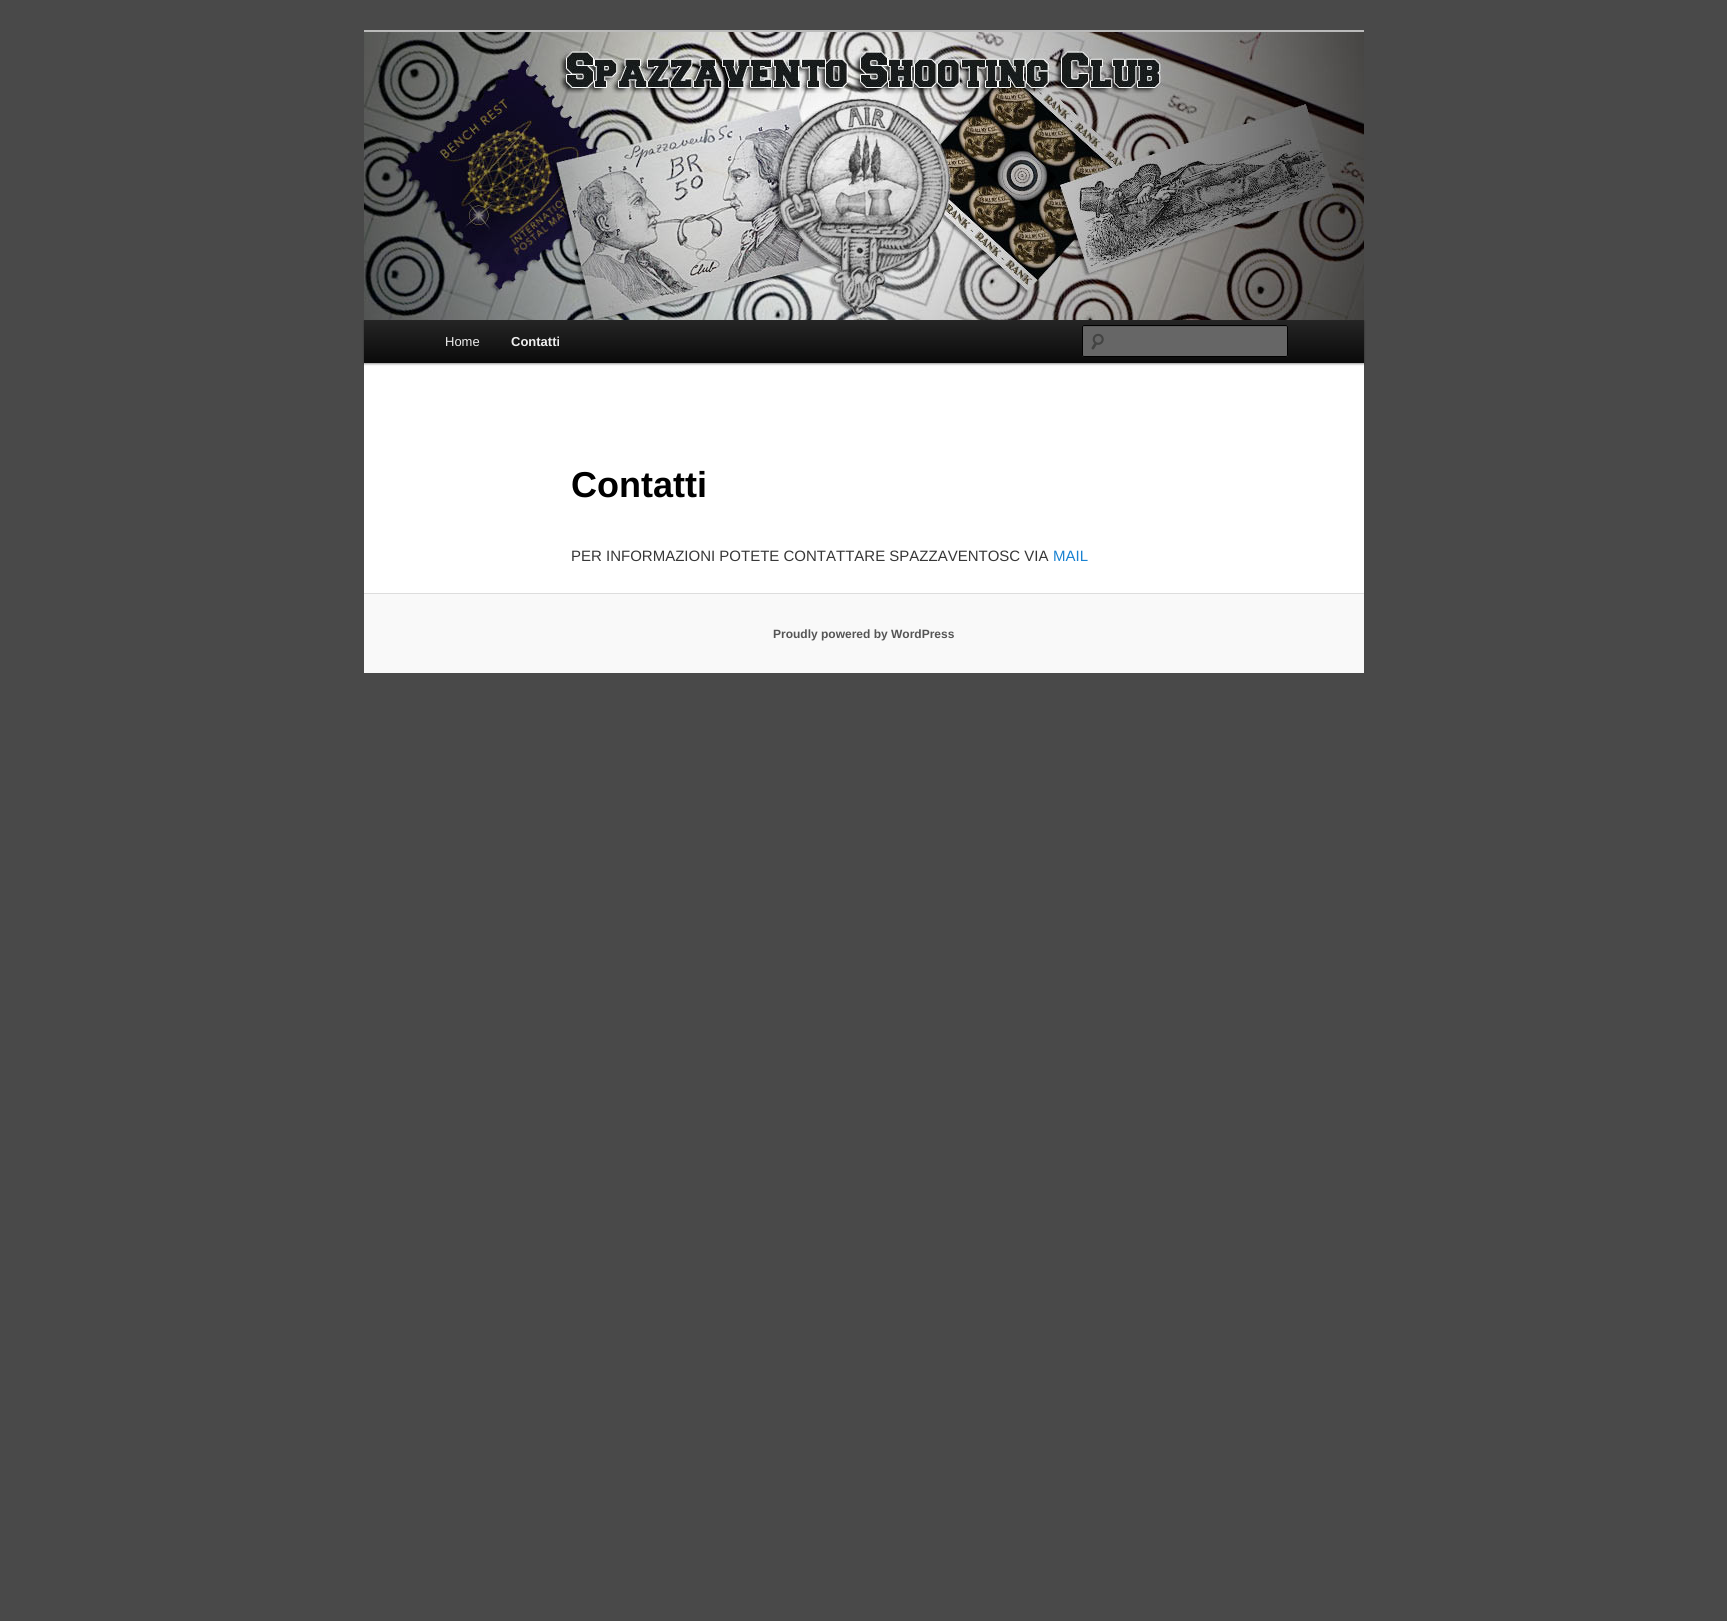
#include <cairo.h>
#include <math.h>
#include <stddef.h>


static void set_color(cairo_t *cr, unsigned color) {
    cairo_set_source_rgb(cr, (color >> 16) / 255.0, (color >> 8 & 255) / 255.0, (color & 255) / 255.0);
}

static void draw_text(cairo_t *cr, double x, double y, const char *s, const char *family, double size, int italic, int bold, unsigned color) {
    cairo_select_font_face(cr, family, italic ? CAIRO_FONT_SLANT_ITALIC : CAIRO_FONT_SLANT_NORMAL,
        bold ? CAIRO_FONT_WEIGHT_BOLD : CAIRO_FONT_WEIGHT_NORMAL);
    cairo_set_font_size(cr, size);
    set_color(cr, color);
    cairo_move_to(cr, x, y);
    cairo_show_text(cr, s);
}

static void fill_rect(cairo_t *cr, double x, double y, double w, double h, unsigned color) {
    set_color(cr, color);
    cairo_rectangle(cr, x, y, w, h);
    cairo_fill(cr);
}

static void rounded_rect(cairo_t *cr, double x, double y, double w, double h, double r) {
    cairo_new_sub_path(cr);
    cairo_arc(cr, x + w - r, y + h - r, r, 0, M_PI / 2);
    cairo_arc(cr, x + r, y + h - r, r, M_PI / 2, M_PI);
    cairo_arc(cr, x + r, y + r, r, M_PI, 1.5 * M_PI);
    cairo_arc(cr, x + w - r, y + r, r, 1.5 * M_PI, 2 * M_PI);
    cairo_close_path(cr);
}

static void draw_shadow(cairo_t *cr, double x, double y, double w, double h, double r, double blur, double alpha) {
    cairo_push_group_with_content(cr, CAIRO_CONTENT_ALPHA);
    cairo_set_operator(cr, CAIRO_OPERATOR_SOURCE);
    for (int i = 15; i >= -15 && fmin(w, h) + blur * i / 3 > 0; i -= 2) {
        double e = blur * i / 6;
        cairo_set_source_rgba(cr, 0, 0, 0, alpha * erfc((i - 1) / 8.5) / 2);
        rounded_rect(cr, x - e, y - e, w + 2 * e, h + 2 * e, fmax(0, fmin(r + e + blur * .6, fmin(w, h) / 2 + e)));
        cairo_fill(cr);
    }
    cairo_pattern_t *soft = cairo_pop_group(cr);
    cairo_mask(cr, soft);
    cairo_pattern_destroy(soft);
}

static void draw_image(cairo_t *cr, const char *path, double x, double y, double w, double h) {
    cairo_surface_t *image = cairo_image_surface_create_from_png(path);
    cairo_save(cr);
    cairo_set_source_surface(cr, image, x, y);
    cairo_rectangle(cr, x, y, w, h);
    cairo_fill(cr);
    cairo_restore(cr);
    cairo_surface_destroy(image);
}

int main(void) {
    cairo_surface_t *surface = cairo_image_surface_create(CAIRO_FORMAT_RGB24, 1727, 1621);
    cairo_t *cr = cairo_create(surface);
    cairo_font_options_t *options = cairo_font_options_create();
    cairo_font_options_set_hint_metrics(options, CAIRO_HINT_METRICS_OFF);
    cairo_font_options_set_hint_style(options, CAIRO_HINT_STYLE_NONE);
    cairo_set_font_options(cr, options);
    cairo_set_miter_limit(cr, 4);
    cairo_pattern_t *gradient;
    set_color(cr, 0x494949);
    cairo_paint(cr);
    fill_rect(cr, 364, 363, 1000, 230, 0xFFFFFF);
    fill_rect(cr, 364, 30, 1000, 2, 0xBBBBBB);
    set_color(cr, 0x000000);
    draw_shadow(cr, 364, 321, 1000, 43, 0, 1, 0.4);
    draw_image(cr, "assets/img1.png", 364, 32, 1000, 288);
    gradient = cairo_pattern_create_linear(864, 320, 864, 363);
    cairo_pattern_add_color_stop_rgba(gradient, 0, 0.145, 0.145, 0.145, 1);
    cairo_pattern_add_color_stop_rgba(gradient, 1, 0.039, 0.039, 0.039, 1);
    cairo_set_source(cr, gradient);
    cairo_pattern_destroy(gradient);
    cairo_rectangle(cr, 364, 320, 1000, 43);
    cairo_fill(cr);
    draw_text(cr, 445, 346, "Home", "Liberation Sans", 13, 0, 0, 0xEEEEEE);
    draw_text(cr, 511, 346, "Contatti", "Liberation Sans", 13, 0, 1, 0xEEEEEE);
    set_color(cr, 0x666666);
    rounded_rect(cr, 1082, 325, 206, 32, 2);
    cairo_fill(cr);
    draw_image(cr, "assets/img2.png", 1091, 333, 13, 17);
    set_color(cr, 0x5C5C5C);
    cairo_new_path(cr);
    cairo_move_to(cr, 1084, 327);
    cairo_line_to(cr, 1287, 327);
    cairo_line_to(cr, 1287, 328);
    cairo_line_to(cr, 1287, 326);
    cairo_line_to(cr, 1286, 326);
    cairo_line_to(cr, 1084, 326);
    cairo_curve_to(cr, 1083, 326, 1083, 327, 1083, 328);
    cairo_curve_to(cr, 1083, 327, 1083, 327, 1084, 327);
    cairo_close_path(cr);
    cairo_fill(cr);
    rounded_rect(cr, 1082.5, 325.5, 205, 31, 1.5);
    set_color(cr, 0x000000);
    cairo_set_line_width(cr, 1);
    cairo_stroke(cr);
    draw_text(cr, 571, 497, "Contatti", "Liberation Sans", 36, 0, 1, 0x000000);
    draw_text(cr, 571, 561, "PER INFORMAZIONI POTETE CONTATTARE SPAZZAVENTOSC VIA", "Liberation Sans", 15, 0, 0, 0x373737);
    draw_text(cr, 1053, 561, "MAIL", "Liberation Sans", 15, 0, 0, 0x1982D1);
    fill_rect(cr, 364, 594, 1000, 79, 0xF9F9F9);
    fill_rect(cr, 364, 593, 1000, 1, 0xDDDDDD);
    draw_text(cr, 773, 638, "Proudly powered by WordPress", "Liberation Sans", 12, 0, 1, 0x555555);
    cairo_surface_write_to_png(surface, "output.png");
    cairo_font_options_destroy(options);
    cairo_destroy(cr);
    cairo_surface_destroy(surface);
    return 0;
}
